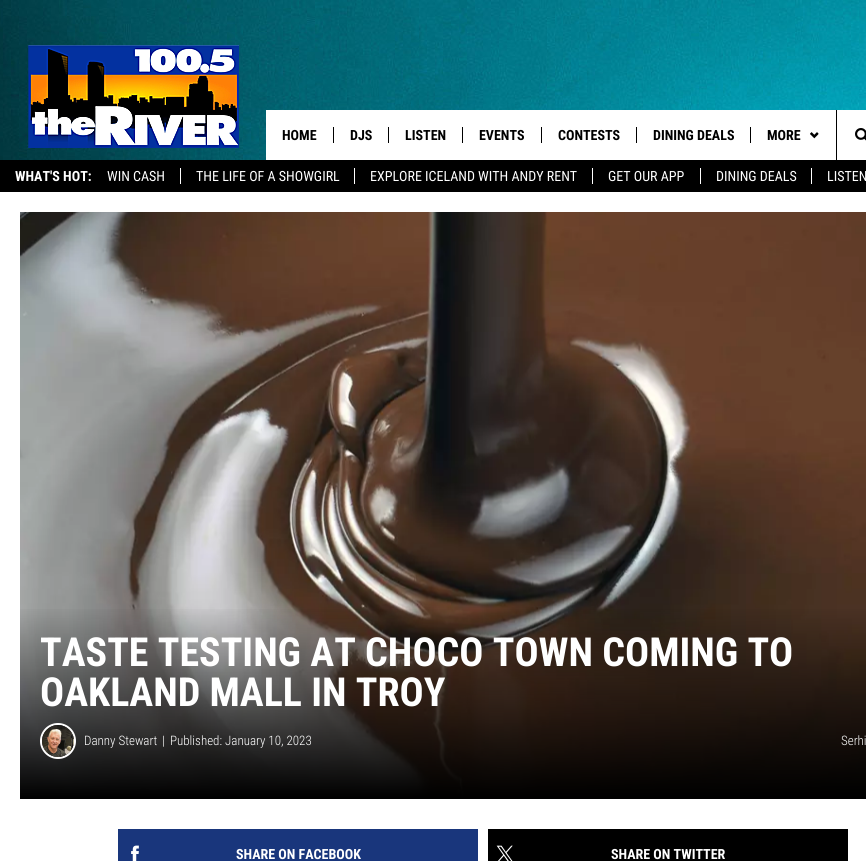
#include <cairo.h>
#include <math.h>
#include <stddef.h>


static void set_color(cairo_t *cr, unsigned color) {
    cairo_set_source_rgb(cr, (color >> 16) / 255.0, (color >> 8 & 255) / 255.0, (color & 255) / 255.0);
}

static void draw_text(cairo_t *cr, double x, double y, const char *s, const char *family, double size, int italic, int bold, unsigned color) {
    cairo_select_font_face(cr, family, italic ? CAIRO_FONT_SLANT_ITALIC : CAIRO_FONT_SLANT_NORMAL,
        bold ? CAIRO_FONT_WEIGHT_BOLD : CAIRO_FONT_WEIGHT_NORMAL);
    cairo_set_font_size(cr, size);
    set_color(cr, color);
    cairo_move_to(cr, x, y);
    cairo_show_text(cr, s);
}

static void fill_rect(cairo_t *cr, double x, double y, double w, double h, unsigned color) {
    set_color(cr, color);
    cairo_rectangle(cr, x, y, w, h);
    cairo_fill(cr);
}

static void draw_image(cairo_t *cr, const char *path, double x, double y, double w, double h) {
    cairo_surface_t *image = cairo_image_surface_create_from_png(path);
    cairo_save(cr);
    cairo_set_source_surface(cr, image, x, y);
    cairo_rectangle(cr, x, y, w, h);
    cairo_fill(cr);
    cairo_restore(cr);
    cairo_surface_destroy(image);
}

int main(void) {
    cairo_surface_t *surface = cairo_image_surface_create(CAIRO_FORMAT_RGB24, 866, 861);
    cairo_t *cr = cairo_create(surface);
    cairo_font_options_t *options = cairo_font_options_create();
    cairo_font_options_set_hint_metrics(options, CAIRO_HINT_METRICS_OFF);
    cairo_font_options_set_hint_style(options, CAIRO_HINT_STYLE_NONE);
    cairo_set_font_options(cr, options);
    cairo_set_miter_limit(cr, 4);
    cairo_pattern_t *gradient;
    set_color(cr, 0xFFFFFF);
    cairo_paint(cr);
    draw_image(cr, "assets/img1.png", 0, 0, 866, 160);
    draw_image(cr, "assets/img2.png", 28, 45, 211, 103);
    fill_rect(cr, 266, 110, 570, 50, 0xFFFFFF);
    draw_text(cr, 282, 140, "HOME", "Roboto Condensed", 14, 0, 1, 0x000000);
    fill_rect(cr, 333, 127, 1, 16, 0x000000);
    draw_text(cr, 350, 140, "DJS", "Roboto Condensed", 14, 0, 1, 0x000000);
    fill_rect(cr, 388, 127, 1, 16, 0x000000);
    draw_text(cr, 405, 140, "LISTEN", "Roboto Condensed", 14, 0, 1, 0x000000);
    fill_rect(cr, 462, 127, 1, 16, 0x000000);
    draw_text(cr, 479, 140, "EVENTS", "Roboto Condensed", 14, 0, 1, 0x000000);
    fill_rect(cr, 541, 127, 1, 16, 0x000000);
    draw_text(cr, 558, 140, "CONTESTS", "Roboto Condensed", 14, 0, 1, 0x000000);
    fill_rect(cr, 636, 127, 1, 16, 0x000000);
    draw_text(cr, 653, 140, "DINING DEALS", "Roboto Condensed", 14, 0, 1, 0x000000);
    fill_rect(cr, 750, 127, 1, 16, 0x000000);
    draw_text(cr, 767, 140, "MORE", "Roboto Condensed", 14, 0, 1, 0x000000);
    draw_image(cr, "assets/img3.png", 810, 132, 9, 7);
    fill_rect(cr, 837, 110, 29, 50, 0xFFFFFF);
    fill_rect(cr, 836, 110, 1, 50, 0x000000);
    draw_image(cr, "assets/img4.png", 855, 128, 11, 13);
    fill_rect(cr, 0, 160, 866, 32, 0x000000);
    draw_text(cr, 15, 181, "WHAT'S HOT:", "Roboto Condensed", 14, 0, 1, 0xFFFFFF);
    draw_text(cr, 107, 181, "WIN CASH", "Roboto Condensed", 14, 0, 0, 0xFFFFFF);
    draw_text(cr, 196, 181, "THE LIFE OF A SHOWGIRL", "Roboto Condensed", 14, 0, 0, 0xFFFFFF);
    fill_rect(cr, 180, 168, 1, 16, 0xFFFFFF);
    draw_text(cr, 370, 181, "EXPLORE ICELAND WITH ANDY RENT", "Roboto Condensed", 14, 0, 0, 0xFFFFFF);
    fill_rect(cr, 354, 168, 1, 16, 0xFFFFFF);
    draw_text(cr, 608, 181, "GET OUR APP", "Roboto Condensed", 14, 0, 0, 0xFFFFFF);
    fill_rect(cr, 592, 168, 1, 16, 0xFFFFFF);
    draw_text(cr, 716, 181, "DINING DEALS", "Roboto Condensed", 14, 0, 0, 0xFFFFFF);
    fill_rect(cr, 700, 168, 1, 16, 0xFFFFFF);
    draw_text(cr, 827, 181, "LISTEN", "Roboto Condensed", 14, 0, 0, 0xFFFFFF);
    fill_rect(cr, 811, 168, 1, 16, 0xFFFFFF);
    draw_image(cr, "assets/img5.png", 20, 212, 846, 586);
    gradient = cairo_pattern_create_linear(483, 605, 483, 799);
    cairo_pattern_add_color_stop_rgba(gradient, 0, 0, 0, 0, 0);
    cairo_pattern_add_color_stop_rgba(gradient, 1, 0, 0, 0, 1);
    cairo_set_source(cr, gradient);
    cairo_pattern_destroy(gradient);
    cairo_rectangle(cr, 20, 609, 846, 190);
    cairo_fill(cr);
    draw_text(cr, 40, 666, "TASTE TESTING AT CHOCO TOWN COMING TO", "Roboto Condensed", 40, 0, 1, 0xFFFFFF);
    draw_text(cr, 40, 706, "OAKLAND MALL IN TROY", "Roboto Condensed", 40, 0, 1, 0xFFFFFF);
    cairo_new_path(cr);
    cairo_arc(cr, 58, 741, 17, 0, 2 * M_PI);
    cairo_stroke(cr);
    draw_image(cr, "assets/img6.png", 42, 725, 32, 32);
    draw_text(cr, 84, 745, "Danny Stewart", "Roboto Condensed Light", 13, 0, 0, 0xFFFFFF);
    draw_text(cr, 162, 745, "|", "Roboto Condensed Light", 13, 0, 0, 0xFFFFFF);
    draw_text(cr, 170, 745, "Published: January 10, 2023", "Roboto Condensed Light", 13, 0, 0, 0xFFFFFF);
    draw_text(cr, 841, 745, "Serhi", "Roboto Condensed Light", 13, 0, 0, 0xFFFFFF);
    fill_rect(cr, 118, 829, 360, 32, 0x19367C);
    draw_image(cr, "assets/img7.png", 131, 845, 8, 16);
    draw_text(cr, 236, 859, "SHARE ON FACEBOOK", "Roboto Condensed", 14, 0, 1, 0xFFFFFF);
    fill_rect(cr, 488, 829, 360, 32, 0x000000);
    draw_image(cr, "assets/img8.png", 496, 845, 17, 16);
    draw_text(cr, 611, 859, "SHARE ON TWITTER", "Roboto Condensed", 14, 0, 1, 0xFFFFFF);
    cairo_surface_write_to_png(surface, "output.png");
    cairo_font_options_destroy(options);
    cairo_destroy(cr);
    cairo_surface_destroy(surface);
    return 0;
}
